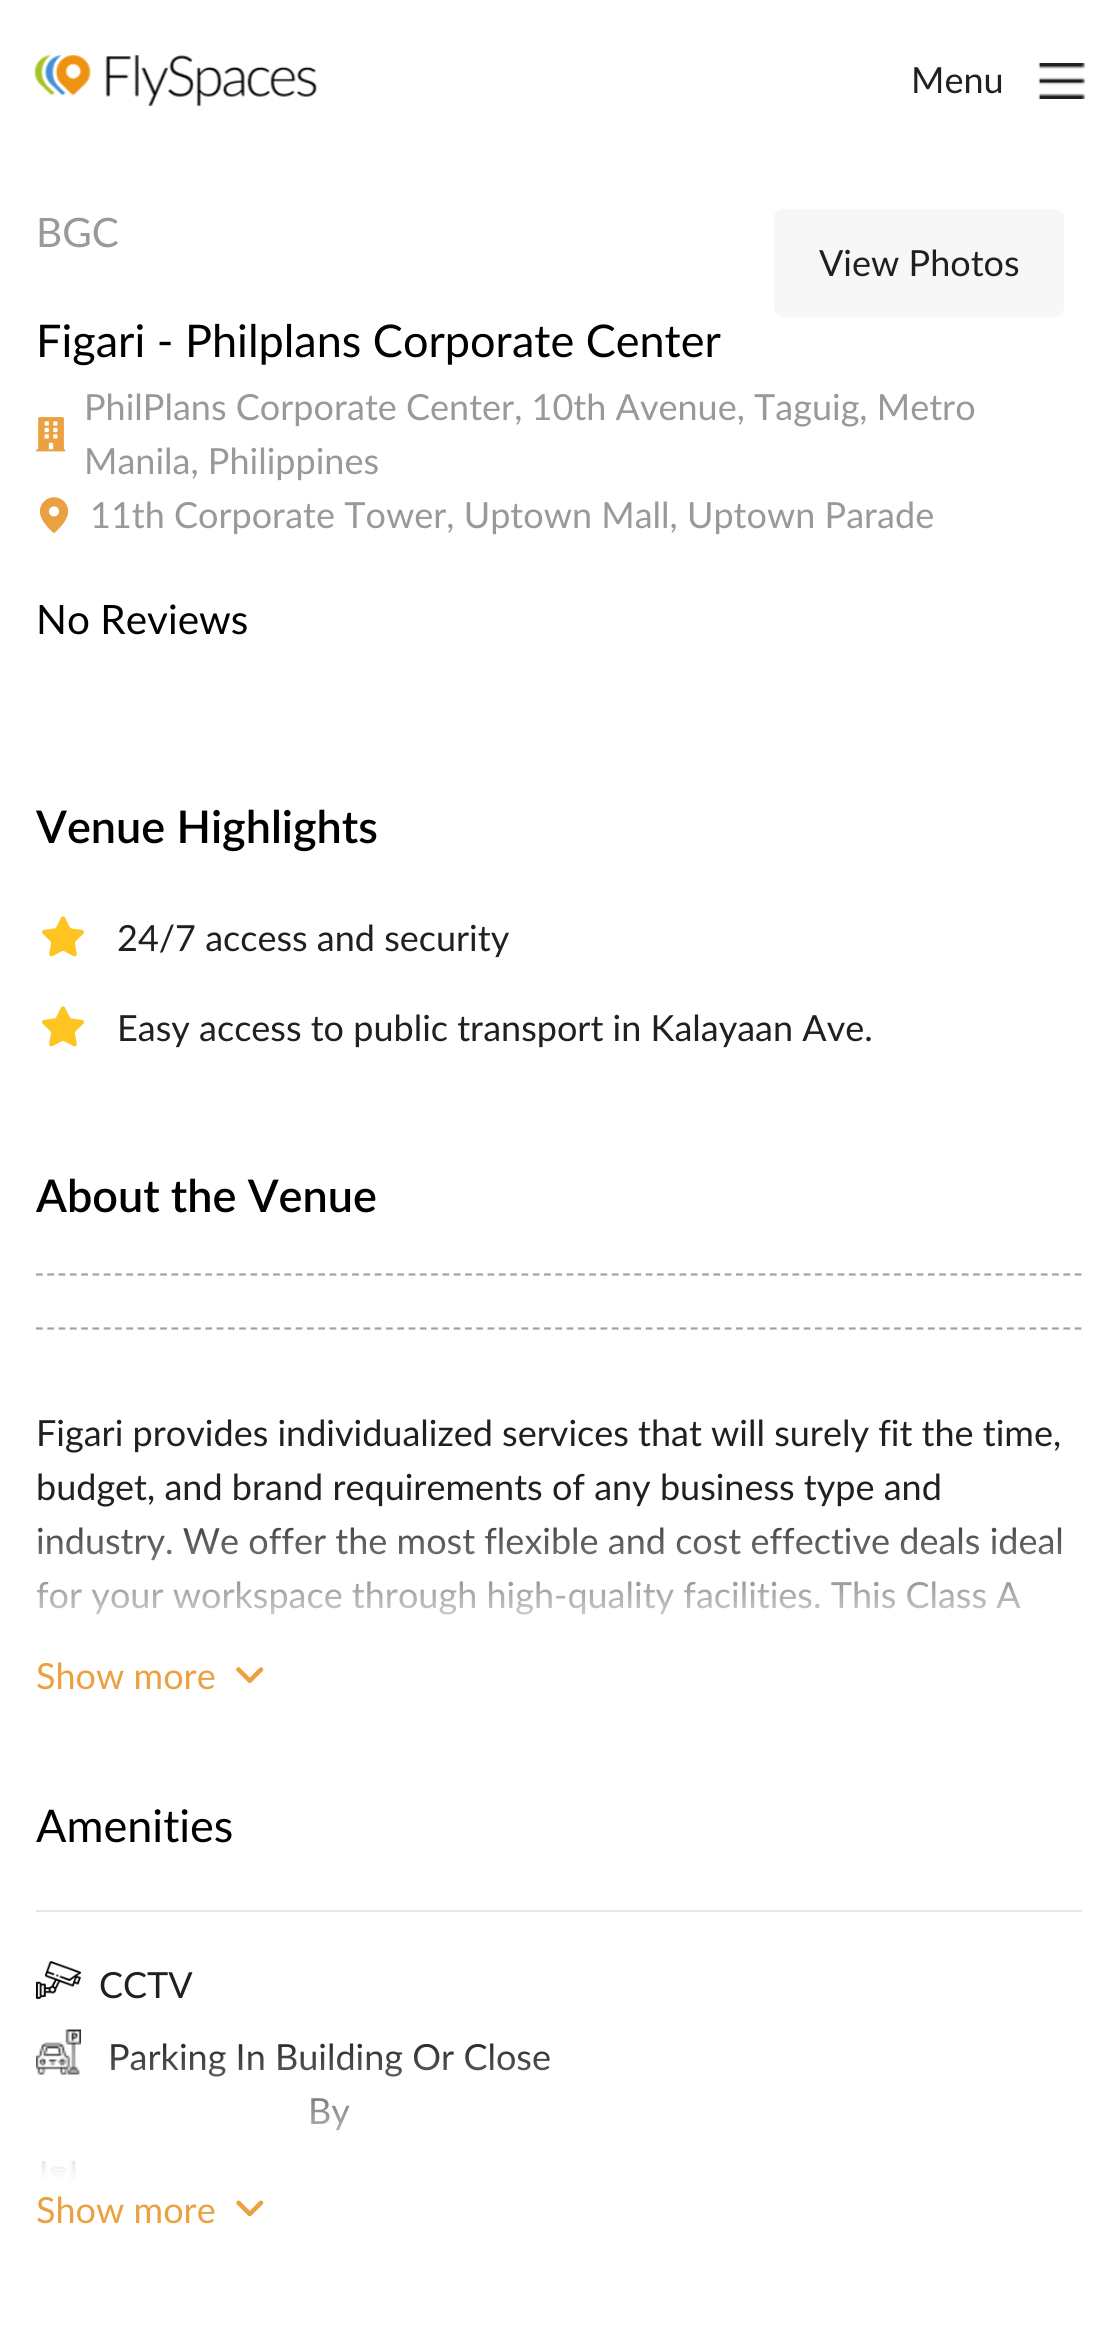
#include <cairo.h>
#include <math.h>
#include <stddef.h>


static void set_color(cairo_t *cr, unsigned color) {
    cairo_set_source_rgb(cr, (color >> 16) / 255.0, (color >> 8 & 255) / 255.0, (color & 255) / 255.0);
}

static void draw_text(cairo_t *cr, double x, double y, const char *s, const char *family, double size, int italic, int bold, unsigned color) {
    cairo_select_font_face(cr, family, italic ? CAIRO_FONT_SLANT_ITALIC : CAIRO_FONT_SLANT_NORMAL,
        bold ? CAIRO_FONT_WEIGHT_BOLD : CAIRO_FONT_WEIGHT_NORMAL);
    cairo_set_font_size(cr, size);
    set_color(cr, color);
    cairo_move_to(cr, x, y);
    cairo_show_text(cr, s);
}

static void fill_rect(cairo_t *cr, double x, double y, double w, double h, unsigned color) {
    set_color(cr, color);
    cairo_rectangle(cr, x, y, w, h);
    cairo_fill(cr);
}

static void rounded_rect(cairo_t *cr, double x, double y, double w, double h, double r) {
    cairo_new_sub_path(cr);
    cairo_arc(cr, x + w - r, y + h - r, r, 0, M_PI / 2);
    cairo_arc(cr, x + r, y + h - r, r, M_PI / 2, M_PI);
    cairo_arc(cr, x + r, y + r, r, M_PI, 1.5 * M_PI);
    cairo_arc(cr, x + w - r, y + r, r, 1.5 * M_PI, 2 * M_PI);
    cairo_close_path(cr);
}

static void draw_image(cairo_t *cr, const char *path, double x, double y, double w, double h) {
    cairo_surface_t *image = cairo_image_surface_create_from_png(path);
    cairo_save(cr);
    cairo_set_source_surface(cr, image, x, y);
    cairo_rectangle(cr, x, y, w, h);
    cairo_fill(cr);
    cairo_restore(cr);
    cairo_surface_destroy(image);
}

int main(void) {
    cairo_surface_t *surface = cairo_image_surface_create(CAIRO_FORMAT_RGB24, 1117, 2329);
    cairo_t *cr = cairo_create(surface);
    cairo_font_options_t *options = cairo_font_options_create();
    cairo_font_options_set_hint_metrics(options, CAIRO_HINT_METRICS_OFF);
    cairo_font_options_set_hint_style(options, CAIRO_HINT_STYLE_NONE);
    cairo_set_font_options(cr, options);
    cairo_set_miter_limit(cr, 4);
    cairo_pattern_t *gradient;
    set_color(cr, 0xFFFFFF);
    cairo_paint(cr);
    draw_image(cr, "assets/img1.png", 34, 55, 283, 51);
    draw_text(cr, 911, 93, "Menu", "Lato", 36, 0, 0, 0x231F20);
    draw_image(cr, "assets/img2.png", 1038, 63, 47, 36);
    draw_text(cr, 36, 247, "BGC", "Lato", 40.5, 0, 0, 0x999999);
    draw_text(cr, 36, 357, "Figari - Philplans Corporate Center", "Lato", 45, 0, 0, 0x000000);
    draw_text(cr, 84, 420, "PhilPlans Corporate Center, 10th Avenue, Taguig, Metro", "Lato", 36, 0, 0, 0x999999);
    draw_image(cr, "assets/img3.png", 36, 417, 29, 35);
    draw_text(cr, 84, 474, "Manila, Philippines", "Lato", 36, 0, 0, 0x999999);
    draw_image(cr, "assets/img4.png", 39, 497, 30, 36);
    draw_text(cr, 90, 528, "11th Corporate Tower, Uptown Mall, Uptown Parade", "Lato", 36, 0, 0, 0x999999);
    draw_text(cr, 36, 634, "No Reviews", "Lato", 40.5, 0, 0, 0x000000);
    draw_text(cr, 36, 843, "Venue Highlights", "Lato SemiBold", 45, 0, 0, 0x000000);
    draw_image(cr, "assets/img5.png", 42, 916, 42, 41);
    draw_text(cr, 117, 951, "24/7 access and security", "Lato", 36, 0, 0, 0x231F20);
    draw_image(cr, "assets/img5.png", 42, 1006, 42, 41);
    draw_text(cr, 117, 1041, "Easy access to public transport in Kalayaan Ave.", "Lato", 36, 0, 0, 0x231F20);
    draw_text(cr, 36, 1212, "About the Venue", "Lato SemiBold", 45, 0, 0, 0x000000);
    cairo_new_path(cr);
    cairo_move_to(cr, 36, 1274.5);
    cairo_line_to(cr, 1082, 1274.5);
    set_color(cr, 0x9CA3AF);
    cairo_set_line_width(cr, 2.2);
    cairo_set_dash(cr, (double[]){6.75, 4.54}, 2, 0);
    cairo_stroke(cr);
    cairo_new_path(cr);
    cairo_move_to(cr, 36, 1328.5);
    cairo_line_to(cr, 1082, 1328.5);
    cairo_stroke(cr);
    draw_text(cr, 36, 1446, "Figari provides individualized services that will surely fit the time,", "Lato", 36, 0, 0, 0x231F20);
    draw_text(cr, 36, 1500, "budget, and brand requirements of any business type and", "Lato", 36, 0, 0, 0x231F20);
    draw_text(cr, 36, 1554, "industry. We offer the most flexible and cost effective deals ideal", "Lato", 36, 0, 0, 0x231F20);
    draw_text(cr, 36, 1608, "for your workspace through high-quality facilities. This Class A", "Lato", 36, 0, 0, 0x231F20);
    gradient = cairo_pattern_create_linear(559, 1649, 559, 1503);
    cairo_pattern_add_color_stop_rgba(gradient, 0, 1, 1, 1, 1);
    cairo_pattern_add_color_stop_rgba(gradient, 1, 1, 1, 1, 0);
    cairo_set_source(cr, gradient);
    cairo_pattern_destroy(gradient);
    cairo_rectangle(cr, 36, 1506, 1026, 109);
    cairo_fill(cr);
    draw_text(cr, 36, 1689, "Show more", "Lato", 36, 0, 0, 0xEBA142);
    draw_image(cr, "assets/img6.png", 236, 1667, 28, 16);
    draw_text(cr, 36, 1842, "Amenities", "Lato", 45, 0, 0, 0x000000);
    fill_rect(cr, 36, 1910, 1046, 2, 0xE5E7EB);
    draw_image(cr, "assets/img7.png", 36, 1961, 45, 38);
    draw_text(cr, 99, 1998, "CCTV", "Lato", 36, 0, 0, 0x231F20);
    draw_image(cr, "assets/img8.png", 36, 2029, 45, 46);
    draw_text(cr, 108, 2070, "Parking In Building Or Close", "Lato", 36, 0, 0, 0x231F20);
    draw_text(cr, 308, 2124, "By", "Lato", 36, 0, 0, 0x231F20);
    draw_image(cr, "assets/img9.png", 39, 2159, 39, 23);
    gradient = cairo_pattern_create_linear(559, 2183, 559, 2036);
    cairo_pattern_add_color_stop_rgba(gradient, 0, 1, 1, 1, 1);
    cairo_pattern_add_color_stop_rgba(gradient, 1, 1, 1, 1, 0);
    cairo_set_source(cr, gradient);
    cairo_pattern_destroy(gradient);
    cairo_rectangle(cr, 36, 2039, 514, 143);
    cairo_fill(cr);
    draw_text(cr, 36, 2223, "Show more", "Lato", 36, 0, 0, 0xEBA142);
    draw_image(cr, "assets/img10.png", 236, 2200, 28, 17);
    set_color(cr, 0xF7F7F7);
    rounded_rect(cr, 774, 209, 290, 108, 9);
    cairo_fill(cr);
    draw_text(cr, 819, 276, "View Photos", "Lato", 36, 0, 0, 0x231F20);
    cairo_surface_write_to_png(surface, "output.png");
    cairo_font_options_destroy(options);
    cairo_destroy(cr);
    cairo_surface_destroy(surface);
    return 0;
}
